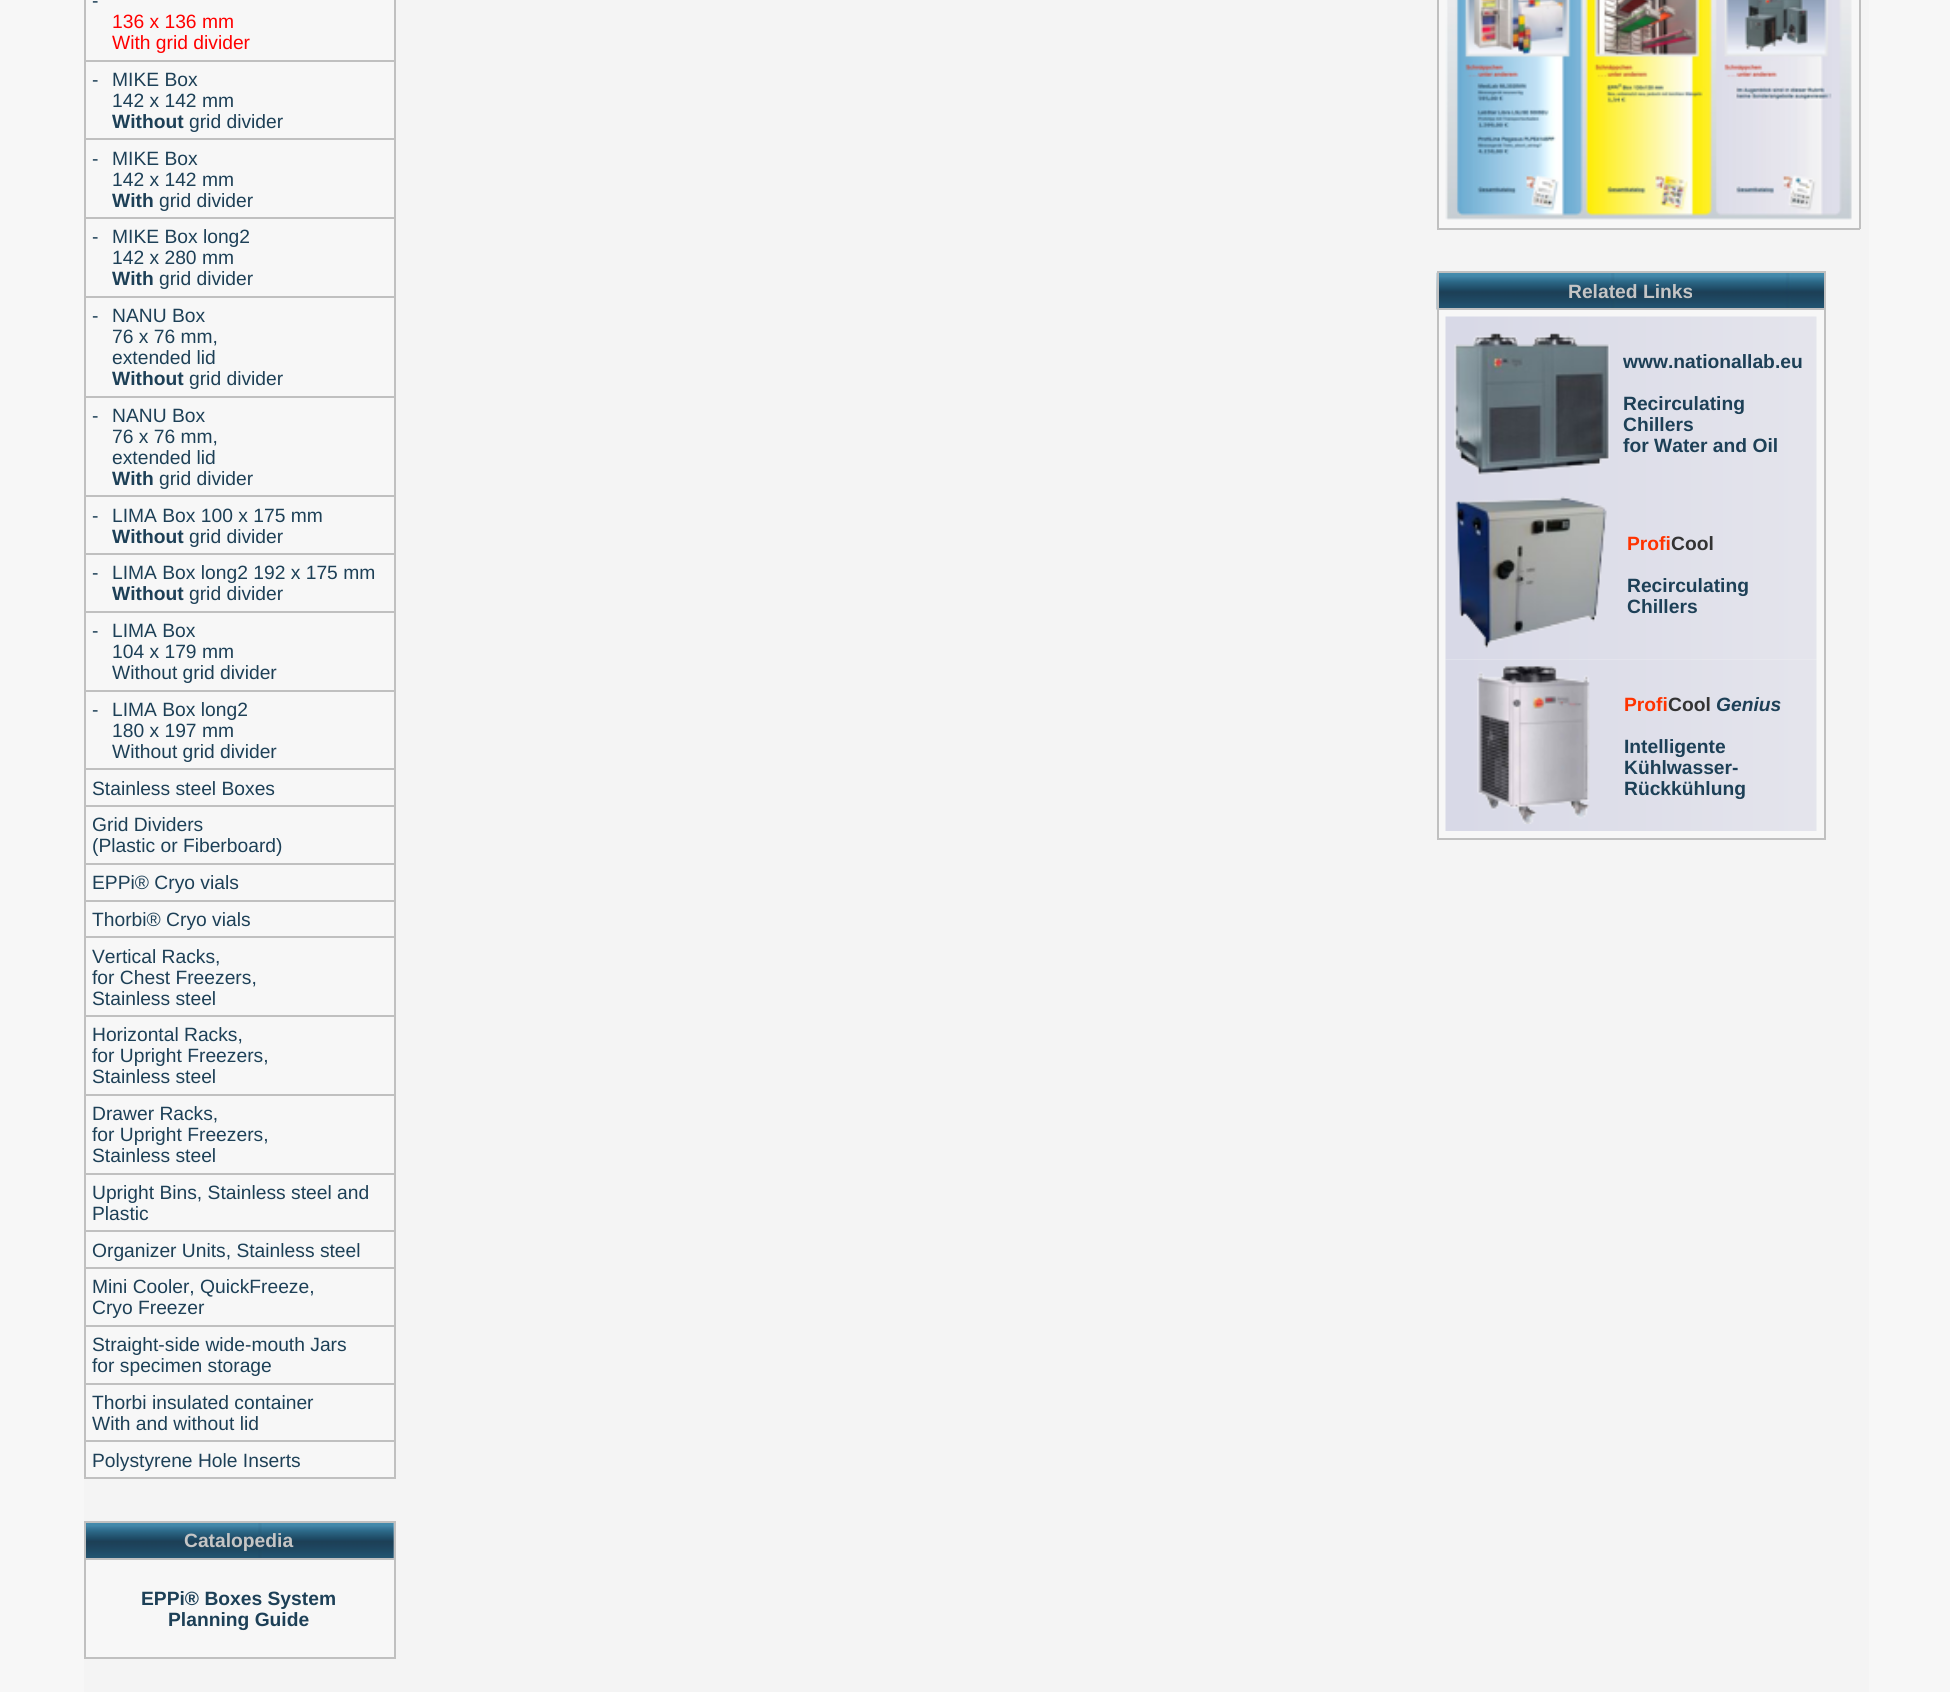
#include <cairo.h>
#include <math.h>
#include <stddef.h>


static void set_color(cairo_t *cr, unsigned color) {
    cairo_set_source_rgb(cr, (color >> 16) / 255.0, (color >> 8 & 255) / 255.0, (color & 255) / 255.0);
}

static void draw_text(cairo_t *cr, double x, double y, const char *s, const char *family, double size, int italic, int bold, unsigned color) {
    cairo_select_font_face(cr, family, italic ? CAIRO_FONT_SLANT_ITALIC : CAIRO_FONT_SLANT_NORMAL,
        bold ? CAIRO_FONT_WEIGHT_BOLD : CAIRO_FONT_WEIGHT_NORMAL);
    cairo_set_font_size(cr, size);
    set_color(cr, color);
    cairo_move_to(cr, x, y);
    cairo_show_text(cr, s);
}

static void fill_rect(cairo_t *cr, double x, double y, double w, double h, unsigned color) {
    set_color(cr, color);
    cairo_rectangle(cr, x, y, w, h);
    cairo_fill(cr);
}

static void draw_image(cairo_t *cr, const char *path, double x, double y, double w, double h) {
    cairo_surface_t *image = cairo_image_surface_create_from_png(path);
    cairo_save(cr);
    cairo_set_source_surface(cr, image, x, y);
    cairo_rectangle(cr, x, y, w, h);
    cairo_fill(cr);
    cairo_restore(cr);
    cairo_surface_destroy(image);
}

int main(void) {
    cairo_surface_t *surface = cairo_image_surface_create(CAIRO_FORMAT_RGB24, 1950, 1692);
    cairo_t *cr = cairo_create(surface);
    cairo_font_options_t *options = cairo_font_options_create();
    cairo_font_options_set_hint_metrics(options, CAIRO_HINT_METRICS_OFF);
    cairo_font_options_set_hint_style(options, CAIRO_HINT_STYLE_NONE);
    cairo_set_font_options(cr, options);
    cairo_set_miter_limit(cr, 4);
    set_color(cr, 0xF7F7F7);
    cairo_paint(cr);
    fill_rect(cr, 84, 0, 1785, 1692, 0xF4F4F4);
    fill_rect(cr, 394, 0, 2, 1479, 0xC0C0C0);
    fill_rect(cr, 84, 1477, 312, 2, 0xC0C0C0);
    fill_rect(cr, 84, 0, 2, 1479, 0xC0C0C0);
    fill_rect(cr, 86, 0, 308, 60, 0xF7F7F7);
    draw_text(cr, 92, 7, "-", "Liberation Sans", 19.25, 0, 0, 0x1D4057);
    draw_text(cr, 112, 28, "136 x 136 mm", "Liberation Sans", 19.25, 0, 0, 0xFF0000);
    draw_text(cr, 112, 49, "With grid divider", "Liberation Sans", 19.25, 0, 0, 0xFF0000);
    fill_rect(cr, 86, 62, 308, 76, 0xF7F7F7);
    draw_text(cr, 92, 86, "-", "Liberation Sans", 19.25, 0, 0, 0x1D4057);
    fill_rect(cr, 84, 60, 312, 2, 0xC0C0C0);
    draw_text(cr, 112, 86, "MIKE Box", "Liberation Sans", 19.25, 0, 0, 0x1D4057);
    draw_text(cr, 112, 107, "142 x 142 mm", "Liberation Sans", 19.25, 0, 0, 0x1D4057);
    draw_text(cr, 112, 128, "Without", "Liberation Sans", 19.25, 0, 1, 0x1D4057);
    draw_text(cr, 189, 128, "grid divider", "Liberation Sans", 19.25, 0, 0, 0x1D4057);
    fill_rect(cr, 86, 140, 308, 77, 0xF7F7F7);
    draw_text(cr, 92, 165, "-", "Liberation Sans", 19.25, 0, 0, 0x1D4057);
    fill_rect(cr, 84, 138, 312, 2, 0xC0C0C0);
    draw_text(cr, 112, 165, "MIKE Box", "Liberation Sans", 19.25, 0, 0, 0x1D4057);
    draw_text(cr, 112, 186, "142 x 142 mm", "Liberation Sans", 19.25, 0, 0, 0x1D4057);
    draw_text(cr, 112, 207, "With", "Liberation Sans", 19.25, 0, 1, 0x1D4057);
    draw_text(cr, 159, 207, "grid divider", "Liberation Sans", 19.25, 0, 0, 0x1D4057);
    fill_rect(cr, 86, 219, 308, 77, 0xF7F7F7);
    draw_text(cr, 92, 243, "-", "Liberation Sans", 19.25, 0, 0, 0x1D4057);
    fill_rect(cr, 84, 217, 312, 2, 0xC0C0C0);
    draw_text(cr, 112, 243, "MIKE Box long2", "Liberation Sans", 19.25, 0, 0, 0x1D4057);
    draw_text(cr, 112, 264, "142 x 280 mm", "Liberation Sans", 19.25, 0, 0, 0x1D4057);
    draw_text(cr, 112, 285, "With", "Liberation Sans", 19.25, 0, 1, 0x1D4057);
    draw_text(cr, 159, 285, "grid divider", "Liberation Sans", 19.25, 0, 0, 0x1D4057);
    fill_rect(cr, 86, 298, 308, 98, 0xF7F7F7);
    draw_text(cr, 92, 322, "-", "Liberation Sans", 19.25, 0, 0, 0x1D4057);
    fill_rect(cr, 84, 296, 312, 2, 0xC0C0C0);
    draw_text(cr, 112, 322, "NANU Box", "Liberation Sans", 19.25, 0, 0, 0x1D4057);
    draw_text(cr, 112, 343, "76 x 76 mm,", "Liberation Sans", 19.25, 0, 0, 0x1D4057);
    draw_text(cr, 112, 364, "extended lid", "Liberation Sans", 19.25, 0, 0, 0x1D4057);
    draw_text(cr, 112, 385, "Without", "Liberation Sans", 19.25, 0, 1, 0x1D4057);
    draw_text(cr, 189, 385, "grid divider", "Liberation Sans", 19.25, 0, 0, 0x1D4057);
    fill_rect(cr, 86, 398, 308, 97, 0xF7F7F7);
    draw_text(cr, 92, 422, "-", "Liberation Sans", 19.25, 0, 0, 0x1D4057);
    fill_rect(cr, 84, 396, 312, 2, 0xC0C0C0);
    draw_text(cr, 112, 422, "NANU Box", "Liberation Sans", 19.25, 0, 0, 0x1D4057);
    draw_text(cr, 112, 443, "76 x 76 mm,", "Liberation Sans", 19.25, 0, 0, 0x1D4057);
    draw_text(cr, 112, 464, "extended lid", "Liberation Sans", 19.25, 0, 0, 0x1D4057);
    draw_text(cr, 112, 485, "With", "Liberation Sans", 19.25, 0, 1, 0x1D4057);
    draw_text(cr, 159, 485, "grid divider", "Liberation Sans", 19.25, 0, 0, 0x1D4057);
    fill_rect(cr, 86, 497, 308, 56, 0xF7F7F7);
    draw_text(cr, 92, 522, "-", "Liberation Sans", 19.25, 0, 0, 0x1D4057);
    fill_rect(cr, 84, 495, 312, 2, 0xC0C0C0);
    draw_text(cr, 112, 522, "LIMA Box 100 x 175 mm", "Liberation Sans", 19.25, 0, 0, 0x1D4057);
    draw_text(cr, 112, 543, "Without", "Liberation Sans", 19.25, 0, 1, 0x1D4057);
    draw_text(cr, 189, 543, "grid divider", "Liberation Sans", 19.25, 0, 0, 0x1D4057);
    fill_rect(cr, 86, 555, 308, 56, 0xF7F7F7);
    draw_text(cr, 92, 579, "-", "Liberation Sans", 19.25, 0, 0, 0x1D4057);
    fill_rect(cr, 84, 553, 312, 2, 0xC0C0C0);
    draw_text(cr, 112, 579, "LIMA Box long2 192 x 175 mm", "Liberation Sans", 19.25, 0, 0, 0x1D4057);
    draw_text(cr, 112, 600, "Without", "Liberation Sans", 19.25, 0, 1, 0x1D4057);
    draw_text(cr, 189, 600, "grid divider", "Liberation Sans", 19.25, 0, 0, 0x1D4057);
    fill_rect(cr, 86, 613, 308, 77, 0xF7F7F7);
    draw_text(cr, 92, 637, "-", "Liberation Sans", 19.25, 0, 0, 0x1D4057);
    fill_rect(cr, 84, 611, 312, 2, 0xC0C0C0);
    draw_text(cr, 112, 637, "LIMA Box", "Liberation Sans", 19.25, 0, 0, 0x1D4057);
    draw_text(cr, 112, 658, "104 x 179 mm", "Liberation Sans", 19.25, 0, 0, 0x1D4057);
    draw_text(cr, 112, 679, "Without grid divider", "Liberation Sans", 19.25, 0, 0, 0x1D4057);
    fill_rect(cr, 86, 692, 308, 76, 0xF7F7F7);
    draw_text(cr, 92, 716, "-", "Liberation Sans", 19.25, 0, 0, 0x1D4057);
    fill_rect(cr, 84, 690, 312, 2, 0xC0C0C0);
    draw_text(cr, 112, 716, "LIMA Box long2", "Liberation Sans", 19.25, 0, 0, 0x1D4057);
    draw_text(cr, 112, 737, "180 x 197 mm", "Liberation Sans", 19.25, 0, 0, 0x1D4057);
    draw_text(cr, 112, 758, "Without grid divider", "Liberation Sans", 19.25, 0, 0, 0x1D4057);
    fill_rect(cr, 86, 770, 308, 35, 0xF7F7F7);
    fill_rect(cr, 84, 768, 312, 2, 0xC0C0C0);
    draw_text(cr, 92, 795, "Stainless steel Boxes", "Liberation Sans", 19.25, 0, 0, 0x1D4057);
    fill_rect(cr, 86, 807, 308, 56, 0xF7F7F7);
    fill_rect(cr, 84, 805, 312, 2, 0xC0C0C0);
    draw_text(cr, 92, 831, "Grid Dividers", "Liberation Sans", 19.25, 0, 0, 0x1D4057);
    draw_text(cr, 92, 852, "(Plastic or Fiberboard)", "Liberation Sans", 19.25, 0, 0, 0x1D4057);
    fill_rect(cr, 86, 865, 308, 35, 0xF7F7F7);
    fill_rect(cr, 84, 863, 312, 2, 0xC0C0C0);
    draw_text(cr, 92, 889, "EPPi® Cryo vials", "Liberation Sans", 19.25, 0, 0, 0x1D4057);
    fill_rect(cr, 86, 902, 308, 34, 0xF7F7F7);
    fill_rect(cr, 84, 900, 312, 2, 0xC0C0C0);
    draw_text(cr, 92, 926, "Thorbi® Cryo vials", "Liberation Sans", 19.25, 0, 0, 0x1D4057);
    fill_rect(cr, 86, 938, 308, 77, 0xF7F7F7);
    fill_rect(cr, 84, 936, 312, 2, 0xC0C0C0);
    draw_text(cr, 92, 963, "Vertical Racks,", "Liberation Sans", 19.25, 0, 0, 0x1D4057);
    draw_text(cr, 92, 984, "for Chest Freezers,", "Liberation Sans", 19.25, 0, 0, 0x1D4057);
    draw_text(cr, 92, 1005, "Stainless steel", "Liberation Sans", 19.25, 0, 0, 0x1D4057);
    fill_rect(cr, 86, 1017, 308, 77, 0xF7F7F7);
    fill_rect(cr, 84, 1015, 312, 2, 0xC0C0C0);
    draw_text(cr, 92, 1041, "Horizontal Racks,", "Liberation Sans", 19.25, 0, 0, 0x1D4057);
    draw_text(cr, 92, 1062, "for Upright Freezers,", "Liberation Sans", 19.25, 0, 0, 0x1D4057);
    draw_text(cr, 92, 1083, "Stainless steel", "Liberation Sans", 19.25, 0, 0, 0x1D4057);
    fill_rect(cr, 86, 1096, 308, 77, 0xF7F7F7);
    fill_rect(cr, 84, 1094, 312, 2, 0xC0C0C0);
    draw_text(cr, 92, 1120, "Drawer Racks,", "Liberation Sans", 19.25, 0, 0, 0x1D4057);
    draw_text(cr, 92, 1141, "for Upright Freezers,", "Liberation Sans", 19.25, 0, 0, 0x1D4057);
    draw_text(cr, 92, 1162, "Stainless steel", "Liberation Sans", 19.25, 0, 0, 0x1D4057);
    fill_rect(cr, 86, 1175, 308, 55, 0xF7F7F7);
    fill_rect(cr, 84, 1173, 312, 2, 0xC0C0C0);
    draw_text(cr, 92, 1199, "Upright Bins, Stainless steel and", "Liberation Sans", 19.25, 0, 0, 0x1D4057);
    draw_text(cr, 92, 1220, "Plastic", "Liberation Sans", 19.25, 0, 0, 0x1D4057);
    fill_rect(cr, 86, 1232, 308, 35, 0xF7F7F7);
    fill_rect(cr, 84, 1230, 312, 2, 0xC0C0C0);
    draw_text(cr, 92, 1257, "Organizer Units, Stainless steel", "Liberation Sans", 19.25, 0, 0, 0x1D4057);
    fill_rect(cr, 86, 1269, 308, 56, 0xF7F7F7);
    fill_rect(cr, 84, 1267, 312, 2, 0xC0C0C0);
    draw_text(cr, 92, 1293, "Mini Cooler, QuickFreeze,", "Liberation Sans", 19.25, 0, 0, 0x1D4057);
    draw_text(cr, 92, 1314, "Cryo Freezer", "Liberation Sans", 19.25, 0, 0, 0x1D4057);
    fill_rect(cr, 86, 1327, 308, 56, 0xF7F7F7);
    fill_rect(cr, 84, 1325, 312, 2, 0xC0C0C0);
    draw_text(cr, 92, 1351, "Straight-side wide-mouth Jars", "Liberation Sans", 19.25, 0, 0, 0x1D4057);
    draw_text(cr, 92, 1372, "for specimen storage", "Liberation Sans", 19.25, 0, 0, 0x1D4057);
    fill_rect(cr, 86, 1385, 308, 55, 0xF7F7F7);
    fill_rect(cr, 84, 1383, 312, 2, 0xC0C0C0);
    draw_text(cr, 92, 1409, "Thorbi insulated container", "Liberation Sans", 19.25, 0, 0, 0x1D4057);
    draw_text(cr, 92, 1430, "With and without lid", "Liberation Sans", 19.25, 0, 0, 0x1D4057);
    fill_rect(cr, 86, 1442, 308, 35, 0xF7F7F7);
    fill_rect(cr, 84, 1440, 312, 2, 0xC0C0C0);
    draw_text(cr, 92, 1467, "Polystyrene Hole Inserts", "Liberation Sans", 19.25, 0, 0, 0x1D4057);
    fill_rect(cr, 86, 1523, 308, 134, 0xF7F7F7);
    draw_image(cr, "assets/img1.png", 86, 1523, 308, 35);
    fill_rect(cr, 84, 1521, 312, 2, 0xC0C0C0);
    fill_rect(cr, 84, 1558, 312, 2, 0xC0C0C0);
    fill_rect(cr, 394, 1558, 2, 101, 0xC0C0C0);
    fill_rect(cr, 394, 1521, 2, 38, 0xC0C0C0);
    fill_rect(cr, 84, 1657, 312, 2, 0xC0C0C0);
    fill_rect(cr, 84, 1558, 2, 101, 0xC0C0C0);
    fill_rect(cr, 84, 1521, 2, 38, 0xC0C0C0);
    draw_text(cr, 184, 1547, "Catalopedia", "Liberation Sans", 19.25, 0, 1, 0xC5C5C5);
    draw_text(cr, 141, 1605, "EPPi® Boxes System", "Liberation Sans", 19.25, 0, 1, 0x1D4057);
    draw_text(cr, 168, 1626, "Planning Guide", "Liberation Sans", 19.25, 0, 1, 0x1D4057);
    fill_rect(cr, 1439, 0, 420, 228, 0xF7F7F7);
    fill_rect(cr, 1859, 0, 2, 229, 0xC0C0C0);
    fill_rect(cr, 1437, 228, 423, 2, 0xC0C0C0);
    fill_rect(cr, 1437, 0, 2, 229, 0xC0C0C0);
    draw_image(cr, "assets/img2.png", 1445, 0, 407, 220);
    fill_rect(cr, 1439, 310, 385, 528, 0xF7F7F7);
    draw_image(cr, "assets/img3.png", 1436, 272, 388, 38);
    fill_rect(cr, 1437, 271, 388, 2, 0xC0C0C0);
    fill_rect(cr, 1437, 308, 388, 2, 0xC0C0C0);
    fill_rect(cr, 1824, 308, 2, 532, 0xC0C0C0);
    fill_rect(cr, 1824, 271, 2, 39, 0xC0C0C0);
    fill_rect(cr, 1437, 838, 388, 2, 0xC0C0C0);
    fill_rect(cr, 1437, 308, 2, 532, 0xC0C0C0);
    fill_rect(cr, 1437, 271, 2, 39, 0xC0C0C0);
    draw_text(cr, 1568, 298, "Related Links", "Liberation Sans", 19.25, 0, 1, 0xC5C5C5);
    draw_image(cr, "assets/img4.png", 1445, 316, 372, 172);
    draw_image(cr, "assets/img5.png", 1454, 333, 156, 143);
    draw_text(cr, 1623, 368, "www.nationallab.eu", "Liberation Sans", 19.25, 0, 1, 0x1D4057);
    draw_text(cr, 1623, 410, "Recirculating", "Liberation Sans", 19.25, 0, 1, 0x1D4057);
    draw_text(cr, 1623, 431, "Chillers", "Liberation Sans", 19.25, 0, 1, 0x1D4057);
    draw_text(cr, 1623, 452, "for Water and Oil", "Liberation Sans", 19.25, 0, 1, 0x1D4057);
    draw_image(cr, "assets/img6.png", 1445, 488, 372, 172);
    draw_image(cr, "assets/img7.png", 1455, 496, 152, 152);
    draw_text(cr, 1627, 550, "Profi", "Liberation Sans", 19.25, 0, 1, 0xFF3300);
    draw_text(cr, 1671, 550, "Cool", "Liberation Sans", 19.25, 0, 1, 0x333333);
    draw_text(cr, 1627, 592, "Recirculating", "Liberation Sans", 19.25, 0, 1, 0x1D4057);
    draw_text(cr, 1627, 613, "Chillers", "Liberation Sans", 19.25, 0, 1, 0x1D4057);
    draw_image(cr, "assets/img8.png", 1445, 659, 372, 172);
    draw_image(cr, "assets/img9.png", 1477, 666, 113, 158);
    draw_text(cr, 1624, 711, "Profi", "Liberation Sans", 19.25, 0, 1, 0xFF3300);
    draw_text(cr, 1668, 711, "Cool", "Liberation Sans", 19.25, 0, 1, 0x333333);
    draw_text(cr, 1716, 711, "Genius", "Liberation Sans", 19.25, 1, 1, 0x1D4057);
    draw_text(cr, 1624, 753, "Intelligente", "Liberation Sans", 19.25, 0, 1, 0x1D4057);
    draw_text(cr, 1624, 774, "Kühlwasser-", "Liberation Sans", 19.25, 0, 1, 0x1D4057);
    draw_text(cr, 1624, 795, "Rückkühlung", "Liberation Sans", 19.25, 0, 1, 0x1D4057);
    cairo_surface_write_to_png(surface, "output.png");
    cairo_font_options_destroy(options);
    cairo_destroy(cr);
    cairo_surface_destroy(surface);
    return 0;
}
